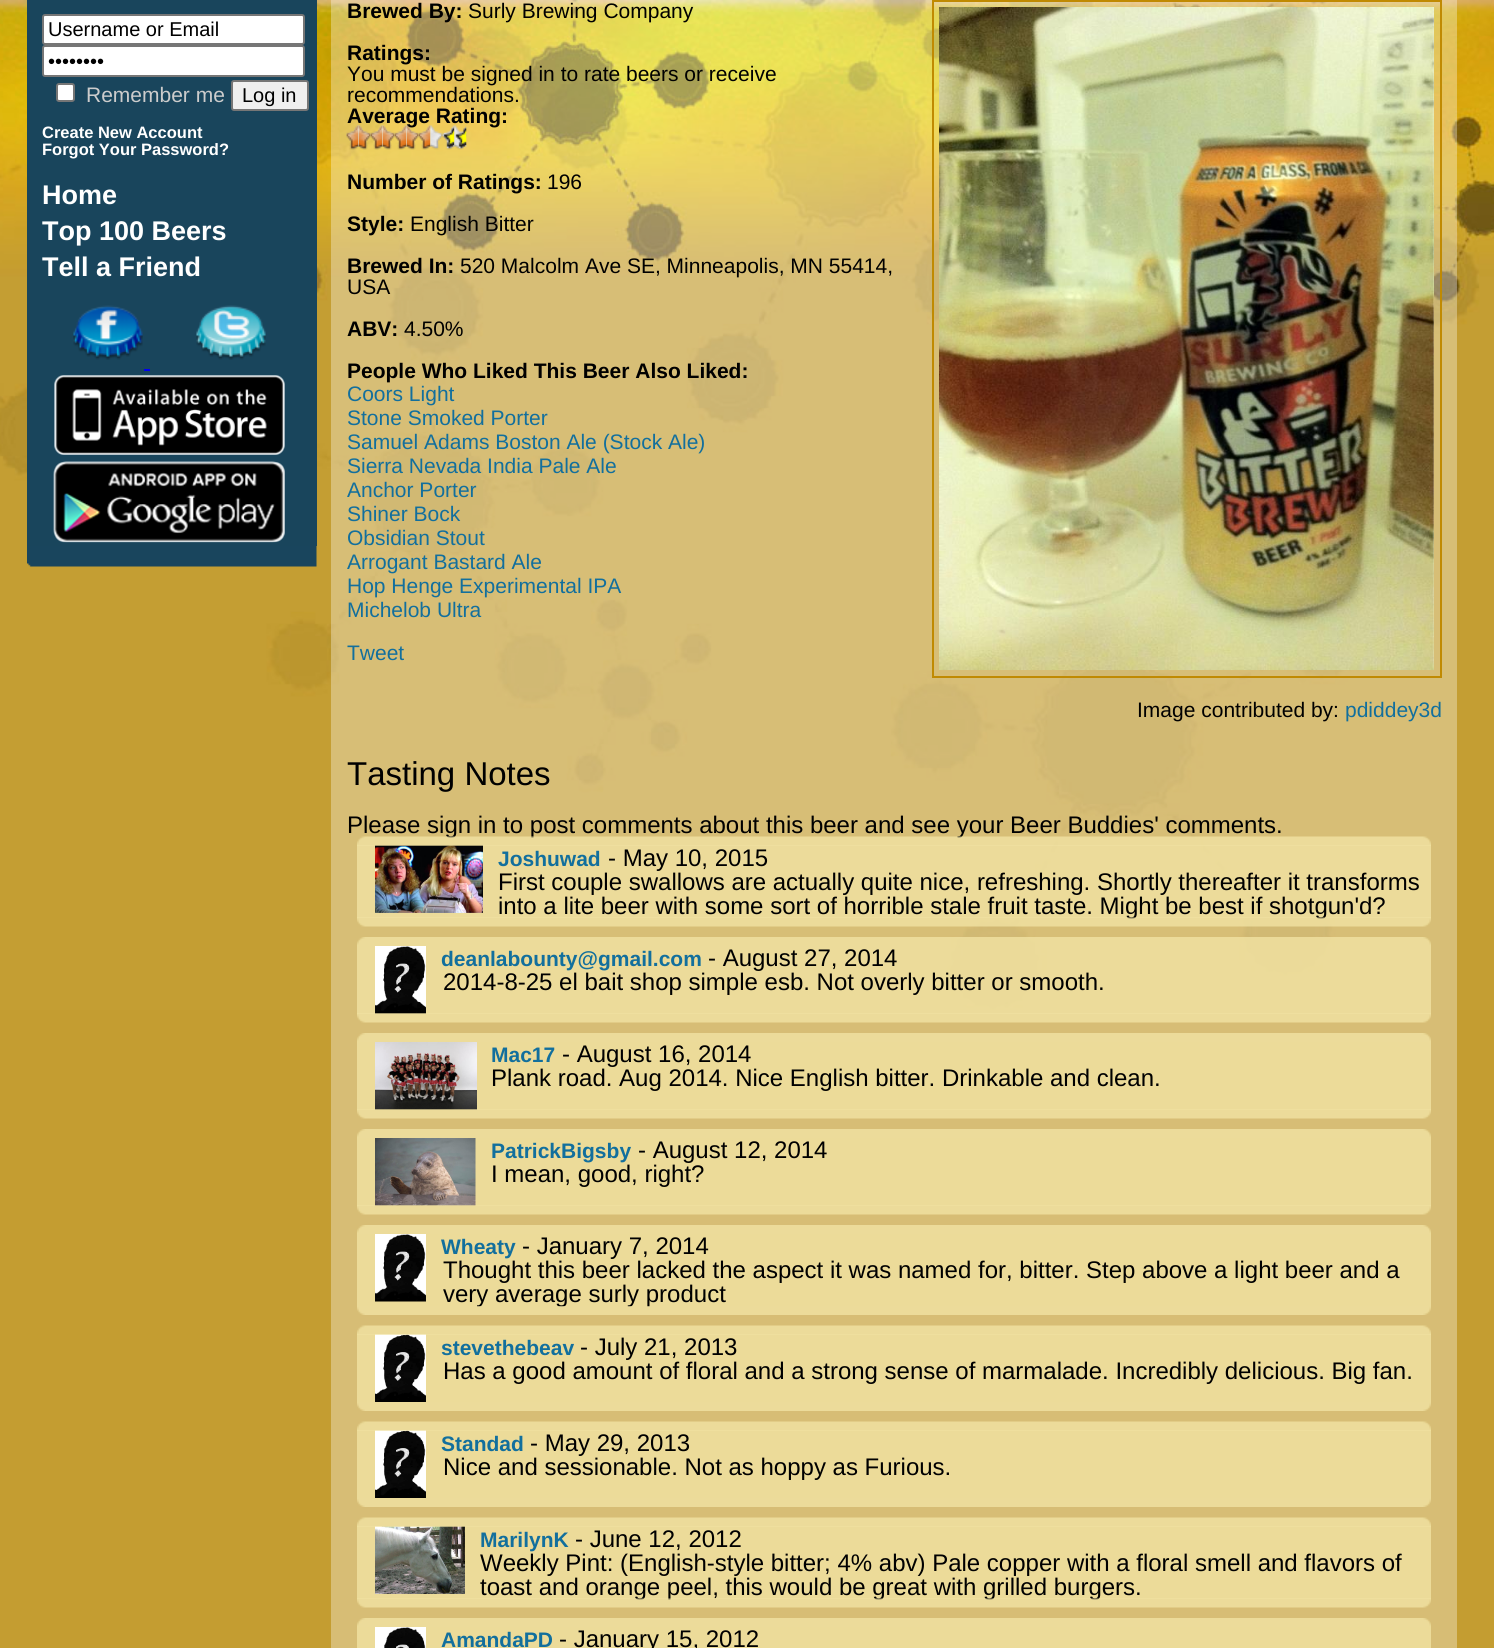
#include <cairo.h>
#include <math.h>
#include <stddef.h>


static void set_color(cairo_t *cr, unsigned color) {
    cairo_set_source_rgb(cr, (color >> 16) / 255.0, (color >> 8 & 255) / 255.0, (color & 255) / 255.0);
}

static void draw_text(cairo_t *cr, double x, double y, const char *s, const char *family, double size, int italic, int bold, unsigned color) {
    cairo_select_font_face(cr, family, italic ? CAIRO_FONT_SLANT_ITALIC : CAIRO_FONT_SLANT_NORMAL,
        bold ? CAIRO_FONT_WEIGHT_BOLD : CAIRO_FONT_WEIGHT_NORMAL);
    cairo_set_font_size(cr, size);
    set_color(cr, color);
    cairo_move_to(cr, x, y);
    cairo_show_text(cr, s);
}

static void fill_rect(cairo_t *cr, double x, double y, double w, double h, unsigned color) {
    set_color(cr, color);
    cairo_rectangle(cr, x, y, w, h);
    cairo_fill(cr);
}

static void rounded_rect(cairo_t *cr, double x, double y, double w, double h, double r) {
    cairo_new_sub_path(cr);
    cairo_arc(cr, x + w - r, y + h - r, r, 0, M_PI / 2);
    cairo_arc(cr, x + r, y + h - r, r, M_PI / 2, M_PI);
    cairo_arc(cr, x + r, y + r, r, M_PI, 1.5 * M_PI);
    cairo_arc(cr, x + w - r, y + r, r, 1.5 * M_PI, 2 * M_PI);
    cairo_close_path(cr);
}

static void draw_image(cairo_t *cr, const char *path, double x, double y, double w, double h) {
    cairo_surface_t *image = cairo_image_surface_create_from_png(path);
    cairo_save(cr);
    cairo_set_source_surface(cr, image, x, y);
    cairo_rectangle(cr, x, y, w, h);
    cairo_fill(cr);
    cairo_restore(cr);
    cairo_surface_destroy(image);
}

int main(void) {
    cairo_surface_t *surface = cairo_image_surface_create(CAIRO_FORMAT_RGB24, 1494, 1648);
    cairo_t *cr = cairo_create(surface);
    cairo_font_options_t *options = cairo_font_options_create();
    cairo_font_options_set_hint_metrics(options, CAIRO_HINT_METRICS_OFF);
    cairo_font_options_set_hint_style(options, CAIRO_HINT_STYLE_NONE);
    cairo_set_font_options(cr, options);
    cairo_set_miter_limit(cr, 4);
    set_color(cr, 0xC49D31);
    cairo_paint(cr);
    draw_image(cr, "assets/img1.png", 0, 0, 1494, 1010);
    fill_rect(cr, 27, 0, 290, 546, 0x19455C);
    set_color(cr, 0xFFFFFF);
    rounded_rect(cr, 43, 15, 261, 29, 2);
    cairo_fill_preserve(cr);
    set_color(cr, 0x767676);
    cairo_stroke(cr);
    draw_text(cr, 48, 36, "Username or Email", "Liberation Sans", 20, 0, 0, 0x000000);
    set_color(cr, 0xFFFFFF);
    rounded_rect(cr, 43, 46, 261, 30, 2);
    cairo_fill_preserve(cr);
    set_color(cr, 0x767676);
    cairo_stroke(cr);
    draw_text(cr, 48, 68, "••••••••", "Liberation Sans", 20, 0, 0, 0x000000);
    set_color(cr, 0xFFFFFF);
    rounded_rect(cr, 57, 84, 17, 17, 2);
    cairo_fill_preserve(cr);
    set_color(cr, 0x767676);
    cairo_stroke(cr);
    draw_text(cr, 86, 102, "Remember me", "Liberation Sans", 21, 0, 0, 0xCCCCCC);
    set_color(cr, 0xEFEFEF);
    rounded_rect(cr, 232, 81, 76, 29, 2);
    cairo_fill_preserve(cr);
    set_color(cr, 0x767676);
    cairo_stroke(cr);
    draw_text(cr, 242, 102, "Log in", "Liberation Sans", 20, 0, 0, 0x000000);
    draw_text(cr, 42, 138, "Create New Account", "Liberation Sans", 16.5, 0, 1, 0xFFFFFF);
    draw_text(cr, 42, 155, "Forgot Your Password?", "Liberation Sans", 16.5, 0, 1, 0xFFFFFF);
    draw_text(cr, 42, 204, "Home", "Liberation Sans", 27, 0, 1, 0xFFFFFF);
    draw_text(cr, 42, 240, "Top 100 Beers", "Liberation Sans", 27, 0, 1, 0xFFFFFF);
    draw_text(cr, 42, 276, "Tell a Friend", "Liberation Sans", 27, 0, 1, 0xFFFFFF);
    draw_image(cr, "assets/img2.png", 73, 305, 70, 55);
    draw_image(cr, "assets/img3.png", 196, 305, 70, 55);
    fill_rect(cr, 144, 369, 6, 2, 0x0000EE);
    draw_image(cr, "assets/img4.png", 54, 375, 231, 80);
    draw_image(cr, "assets/img5.png", 53, 461, 232, 82);
    draw_image(cr, "assets/img6.png", 27, 546, 290, 21);
    cairo_set_source_rgba(cr, 1, 1, 1, 0.33);
    cairo_rectangle(cr, 331, 0, 1126, 1648);
    cairo_fill(cr);
    draw_text(cr, 347, 18, "Brewed By:", "Liberation Sans", 21, 0, 1, 0x000000);
    draw_text(cr, 468, 18, "Surly Brewing Company", "Liberation Sans", 21, 0, 0, 0x000000);
    draw_text(cr, 347, 60, "Ratings:", "Liberation Sans", 21, 0, 1, 0x000000);
    draw_text(cr, 347, 81, "You must be signed in to rate beers or receive", "Liberation Sans", 21, 0, 0, 0x000000);
    draw_text(cr, 347, 102, "recommendations.", "Liberation Sans", 21, 0, 0, 0x000000);
    draw_text(cr, 347, 123, "Average Rating:", "Liberation Sans", 21, 0, 1, 0x000000);
    draw_image(cr, "assets/img7.png", 346, 125, 13, 25);
    draw_image(cr, "assets/img8.png", 346, 125, 13, 25);
    draw_image(cr, "assets/img9.png", 358, 125, 13, 25);
    draw_image(cr, "assets/img10.png", 358, 125, 13, 25);
    draw_image(cr, "assets/img11.png", 370, 125, 13, 25);
    draw_image(cr, "assets/img12.png", 370, 125, 13, 25);
    draw_image(cr, "assets/img13.png", 382, 125, 13, 25);
    draw_image(cr, "assets/img14.png", 382, 125, 13, 25);
    draw_image(cr, "assets/img15.png", 394, 125, 13, 25);
    draw_image(cr, "assets/img16.png", 394, 125, 13, 25);
    draw_image(cr, "assets/img17.png", 406, 125, 13, 25);
    draw_image(cr, "assets/img18.png", 406, 125, 13, 25);
    draw_image(cr, "assets/img19.png", 418, 125, 13, 25);
    draw_image(cr, "assets/img20.png", 418, 125, 13, 25);
    draw_image(cr, "assets/img21.png", 430, 125, 13, 25);
    draw_image(cr, "assets/img22.png", 442, 125, 13, 25);
    draw_image(cr, "assets/img23.png", 442, 126, 13, 23);
    draw_image(cr, "assets/img24.png", 454, 125, 13, 25);
    draw_image(cr, "assets/img25.png", 454, 126, 13, 23);
    draw_text(cr, 347, 189, "Number of Ratings:", "Liberation Sans", 21, 0, 1, 0x000000);
    draw_text(cr, 547, 189, "196", "Liberation Sans", 21, 0, 0, 0x000000);
    draw_text(cr, 347, 231, "Style:", "Liberation Sans", 21, 0, 1, 0x000000);
    draw_text(cr, 410, 231, "English Bitter", "Liberation Sans", 21, 0, 0, 0x000000);
    draw_text(cr, 347, 273, "Brewed In:", "Liberation Sans", 21, 0, 1, 0x000000);
    draw_text(cr, 460, 273, "520 Malcolm Ave SE, Minneapolis, MN 55414,", "Liberation Sans", 21, 0, 0, 0x000000);
    draw_text(cr, 347, 294, "USA", "Liberation Sans", 21, 0, 0, 0x000000);
    draw_text(cr, 347, 336, "ABV:", "Liberation Sans", 21, 0, 1, 0x000000);
    draw_text(cr, 404, 336, "4.50%", "Liberation Sans", 21, 0, 0, 0x000000);
    draw_text(cr, 347, 378, "People Who Liked This Beer Also Liked:", "Liberation Sans", 21, 0, 1, 0x000000);
    draw_text(cr, 347, 401, "Coors Light", "Liberation Sans", 21, 0, 0, 0x126F9D);
    draw_text(cr, 347, 425, "Stone Smoked Porter", "Liberation Sans", 21, 0, 0, 0x126F9D);
    draw_text(cr, 347, 449, "Samuel Adams Boston Ale (Stock Ale)", "Liberation Sans", 21, 0, 0, 0x126F9D);
    draw_text(cr, 347, 473, "Sierra Nevada India Pale Ale", "Liberation Sans", 21, 0, 0, 0x126F9D);
    draw_text(cr, 347, 497, "Anchor Porter", "Liberation Sans", 21, 0, 0, 0x126F9D);
    draw_text(cr, 347, 521, "Shiner Bock", "Liberation Sans", 21, 0, 0, 0x126F9D);
    draw_text(cr, 347, 545, "Obsidian Stout", "Liberation Sans", 21, 0, 0, 0x126F9D);
    draw_text(cr, 347, 569, "Arrogant Bastard Ale", "Liberation Sans", 21, 0, 0, 0x126F9D);
    draw_text(cr, 347, 593, "Hop Henge Experimental IPA", "Liberation Sans", 21, 0, 0, 0x126F9D);
    draw_text(cr, 347, 617, "Michelob Ultra", "Liberation Sans", 21, 0, 0, 0x126F9D);
    draw_text(cr, 347, 660, "Tweet", "Liberation Sans", 21, 0, 0, 0x126F9D);
    cairo_rectangle(cr, 933, 1, 508, 676);
    set_color(cr, 0xC08A02);
    cairo_stroke(cr);
    draw_image(cr, "assets/img26.png", 939, 7, 495, 663);
    draw_text(cr, 1137, 717, "Image contributed by:", "Liberation Sans", 21, 0, 0, 0x000000);
    draw_text(cr, 1345, 717, "pdiddey3d", "Liberation Sans", 21, 0, 0, 0x126F9D);
    draw_text(cr, 347, 785, "Tasting Notes", "Liberation Sans", 33, 0, 0, 0x000000);
    draw_text(cr, 347, 833, "Please sign in to post comments about this beer and see your Beer Buddies' comments.", "Liberation Sans", 24, 0, 0, 0x000000);
    cairo_set_source_rgba(cr, 0.957, 0.902, 0.655, 0.73);
    cairo_rectangle(cr, 357, 845, 1074, 73);
    cairo_fill(cr);
    draw_image(cr, "assets/img28.png", 375, 845, 108, 68);
    draw_image(cr, "assets/img27.png", 357, 836, 1074, 10);
    draw_text(cr, 498, 866, "Joshuwad", "Liberation Sans", 21, 0, 1, 0x126F9D);
    draw_text(cr, 608, 866, "- May 10, 2015", "Liberation Sans", 24, 0, 0, 0x000000);
    draw_text(cr, 498, 890, "First couple swallows are actually quite nice, refreshing. Shortly thereafter it transforms", "Liberation Sans", 24, 0, 0, 0x000000);
    draw_text(cr, 498, 914, "into a lite beer with some sort of horrible stale fruit taste. Might be best if shotgun'd?", "Liberation Sans", 24, 0, 0, 0x000000);
    draw_image(cr, "assets/img29.png", 357, 917, 1074, 10);
    draw_image(cr, "assets/img30.png", 357, 937, 1074, 9);
    cairo_set_source_rgba(cr, 0.957, 0.902, 0.655, 0.73);
    cairo_rectangle(cr, 357, 946, 1074, 68);
    cairo_fill(cr);
    draw_image(cr, "assets/img31.png", 375, 946, 51, 68);
    draw_text(cr, 441, 966, "deanlabounty@gmail.com", "Liberation Sans", 21, 0, 1, 0x126F9D);
    draw_text(cr, 708, 966, "- August 27, 2014", "Liberation Sans", 24, 0, 0, 0x000000);
    draw_text(cr, 443, 990, "2014-8-25 el bait shop simple esb. Not overly bitter or smooth.", "Liberation Sans", 24, 0, 0, 0x000000);
    draw_image(cr, "assets/img32.png", 357, 1013, 1074, 10);
    draw_image(cr, "assets/img33.png", 357, 1033, 1074, 9);
    fill_rect(cr, 357, 1042, 1074, 68, 0xECDB99);
    draw_image(cr, "assets/img34.png", 375, 1042, 102, 68);
    draw_text(cr, 491, 1062, "Mac17", "Liberation Sans", 21, 0, 1, 0x126F9D);
    draw_text(cr, 562, 1062, "- August 16, 2014", "Liberation Sans", 24, 0, 0, 0x000000);
    draw_text(cr, 491, 1086, "Plank road. Aug 2014. Nice English bitter. Drinkable and clean.", "Liberation Sans", 24, 0, 0, 0x000000);
    draw_image(cr, "assets/img35.png", 357, 1109, 1074, 10);
    draw_image(cr, "assets/img33.png", 357, 1129, 1074, 9);
    fill_rect(cr, 357, 1138, 1074, 68, 0xECDB99);
    draw_image(cr, "assets/img36.png", 375, 1138, 101, 68);
    draw_text(cr, 491, 1158, "PatrickBigsby", "Liberation Sans", 21, 0, 1, 0x126F9D);
    draw_text(cr, 638, 1158, "- August 12, 2014", "Liberation Sans", 24, 0, 0, 0x000000);
    draw_text(cr, 491, 1182, "I mean, good, right?", "Liberation Sans", 24, 0, 0, 0x000000);
    draw_image(cr, "assets/img37.png", 357, 1205, 1074, 10);
    draw_image(cr, "assets/img33.png", 357, 1225, 1074, 9);
    fill_rect(cr, 357, 1234, 1074, 72, 0xECDB99);
    draw_image(cr, "assets/img31.png", 375, 1234, 51, 68);
    draw_text(cr, 441, 1254, "Wheaty", "Liberation Sans", 21, 0, 1, 0x126F9D);
    draw_text(cr, 522, 1254, "- January 7, 2014", "Liberation Sans", 24, 0, 0, 0x000000);
    draw_text(cr, 443, 1278, "Thought this beer lacked the aspect it was named for, bitter. Step above a light beer and a", "Liberation Sans", 24, 0, 0, 0x000000);
    draw_text(cr, 443, 1302, "very average surly product", "Liberation Sans", 24, 0, 0, 0x000000);
    draw_image(cr, "assets/img38.png", 357, 1306, 1074, 9);
    fill_rect(cr, 357, 1334, 1074, 68, 0xECDB99);
    draw_image(cr, "assets/img40.png", 375, 1334, 51, 68);
    draw_image(cr, "assets/img39.png", 357, 1325, 1074, 10);
    draw_text(cr, 441, 1355, "stevethebeav", "Liberation Sans", 21, 0, 1, 0x126F9D);
    draw_text(cr, 580, 1355, "- July 21, 2013", "Liberation Sans", 24, 0, 0, 0x000000);
    draw_text(cr, 443, 1379, "Has a good amount of floral and a strong sense of marmalade. Incredibly delicious. Big fan.", "Liberation Sans", 24, 0, 0, 0x000000);
    draw_image(cr, "assets/img41.png", 357, 1402, 1074, 9);
    fill_rect(cr, 357, 1430, 1074, 68, 0xECDB99);
    draw_image(cr, "assets/img40.png", 375, 1430, 51, 68);
    draw_image(cr, "assets/img39.png", 357, 1421, 1074, 10);
    draw_text(cr, 441, 1451, "Standad", "Liberation Sans", 21, 0, 1, 0x126F9D);
    draw_text(cr, 530, 1451, "- May 29, 2013", "Liberation Sans", 24, 0, 0, 0x000000);
    draw_text(cr, 443, 1475, "Nice and sessionable. Not as hoppy as Furious.", "Liberation Sans", 24, 0, 0, 0x000000);
    draw_image(cr, "assets/img41.png", 357, 1498, 1074, 9);
    fill_rect(cr, 357, 1526, 1074, 73, 0xECDB99);
    draw_image(cr, "assets/img43.png", 375, 1526, 90, 68);
    draw_image(cr, "assets/img42.png", 357, 1517, 1074, 10);
    draw_text(cr, 480, 1547, "MarilynK", "Liberation Sans", 21, 0, 1, 0x126F9D);
    draw_text(cr, 575, 1547, "- June 12, 2012", "Liberation Sans", 24, 0, 0, 0x000000);
    draw_text(cr, 480, 1571, "Weekly Pint: (English-style bitter; 4% abv) Pale copper with a floral smell and flavors of", "Liberation Sans", 24, 0, 0, 0x000000);
    draw_text(cr, 480, 1595, "toast and orange peel, this would be great with grilled burgers.", "Liberation Sans", 24, 0, 0, 0x000000);
    draw_image(cr, "assets/img44.png", 357, 1598, 1074, 10);
    draw_image(cr, "assets/img33.png", 357, 1618, 1074, 9);
    fill_rect(cr, 357, 1627, 1074, 21, 0xECDB99);
    draw_image(cr, "assets/img45.png", 375, 1627, 51, 21);
    draw_text(cr, 441, 1647, "AmandaPD", "Liberation Sans", 21, 0, 1, 0x126F9D);
    draw_text(cr, 559, 1647, "- January 15, 2012", "Liberation Sans", 24, 0, 0, 0x000000);
    cairo_surface_write_to_png(surface, "output.png");
    cairo_font_options_destroy(options);
    cairo_destroy(cr);
    cairo_surface_destroy(surface);
    return 0;
}
